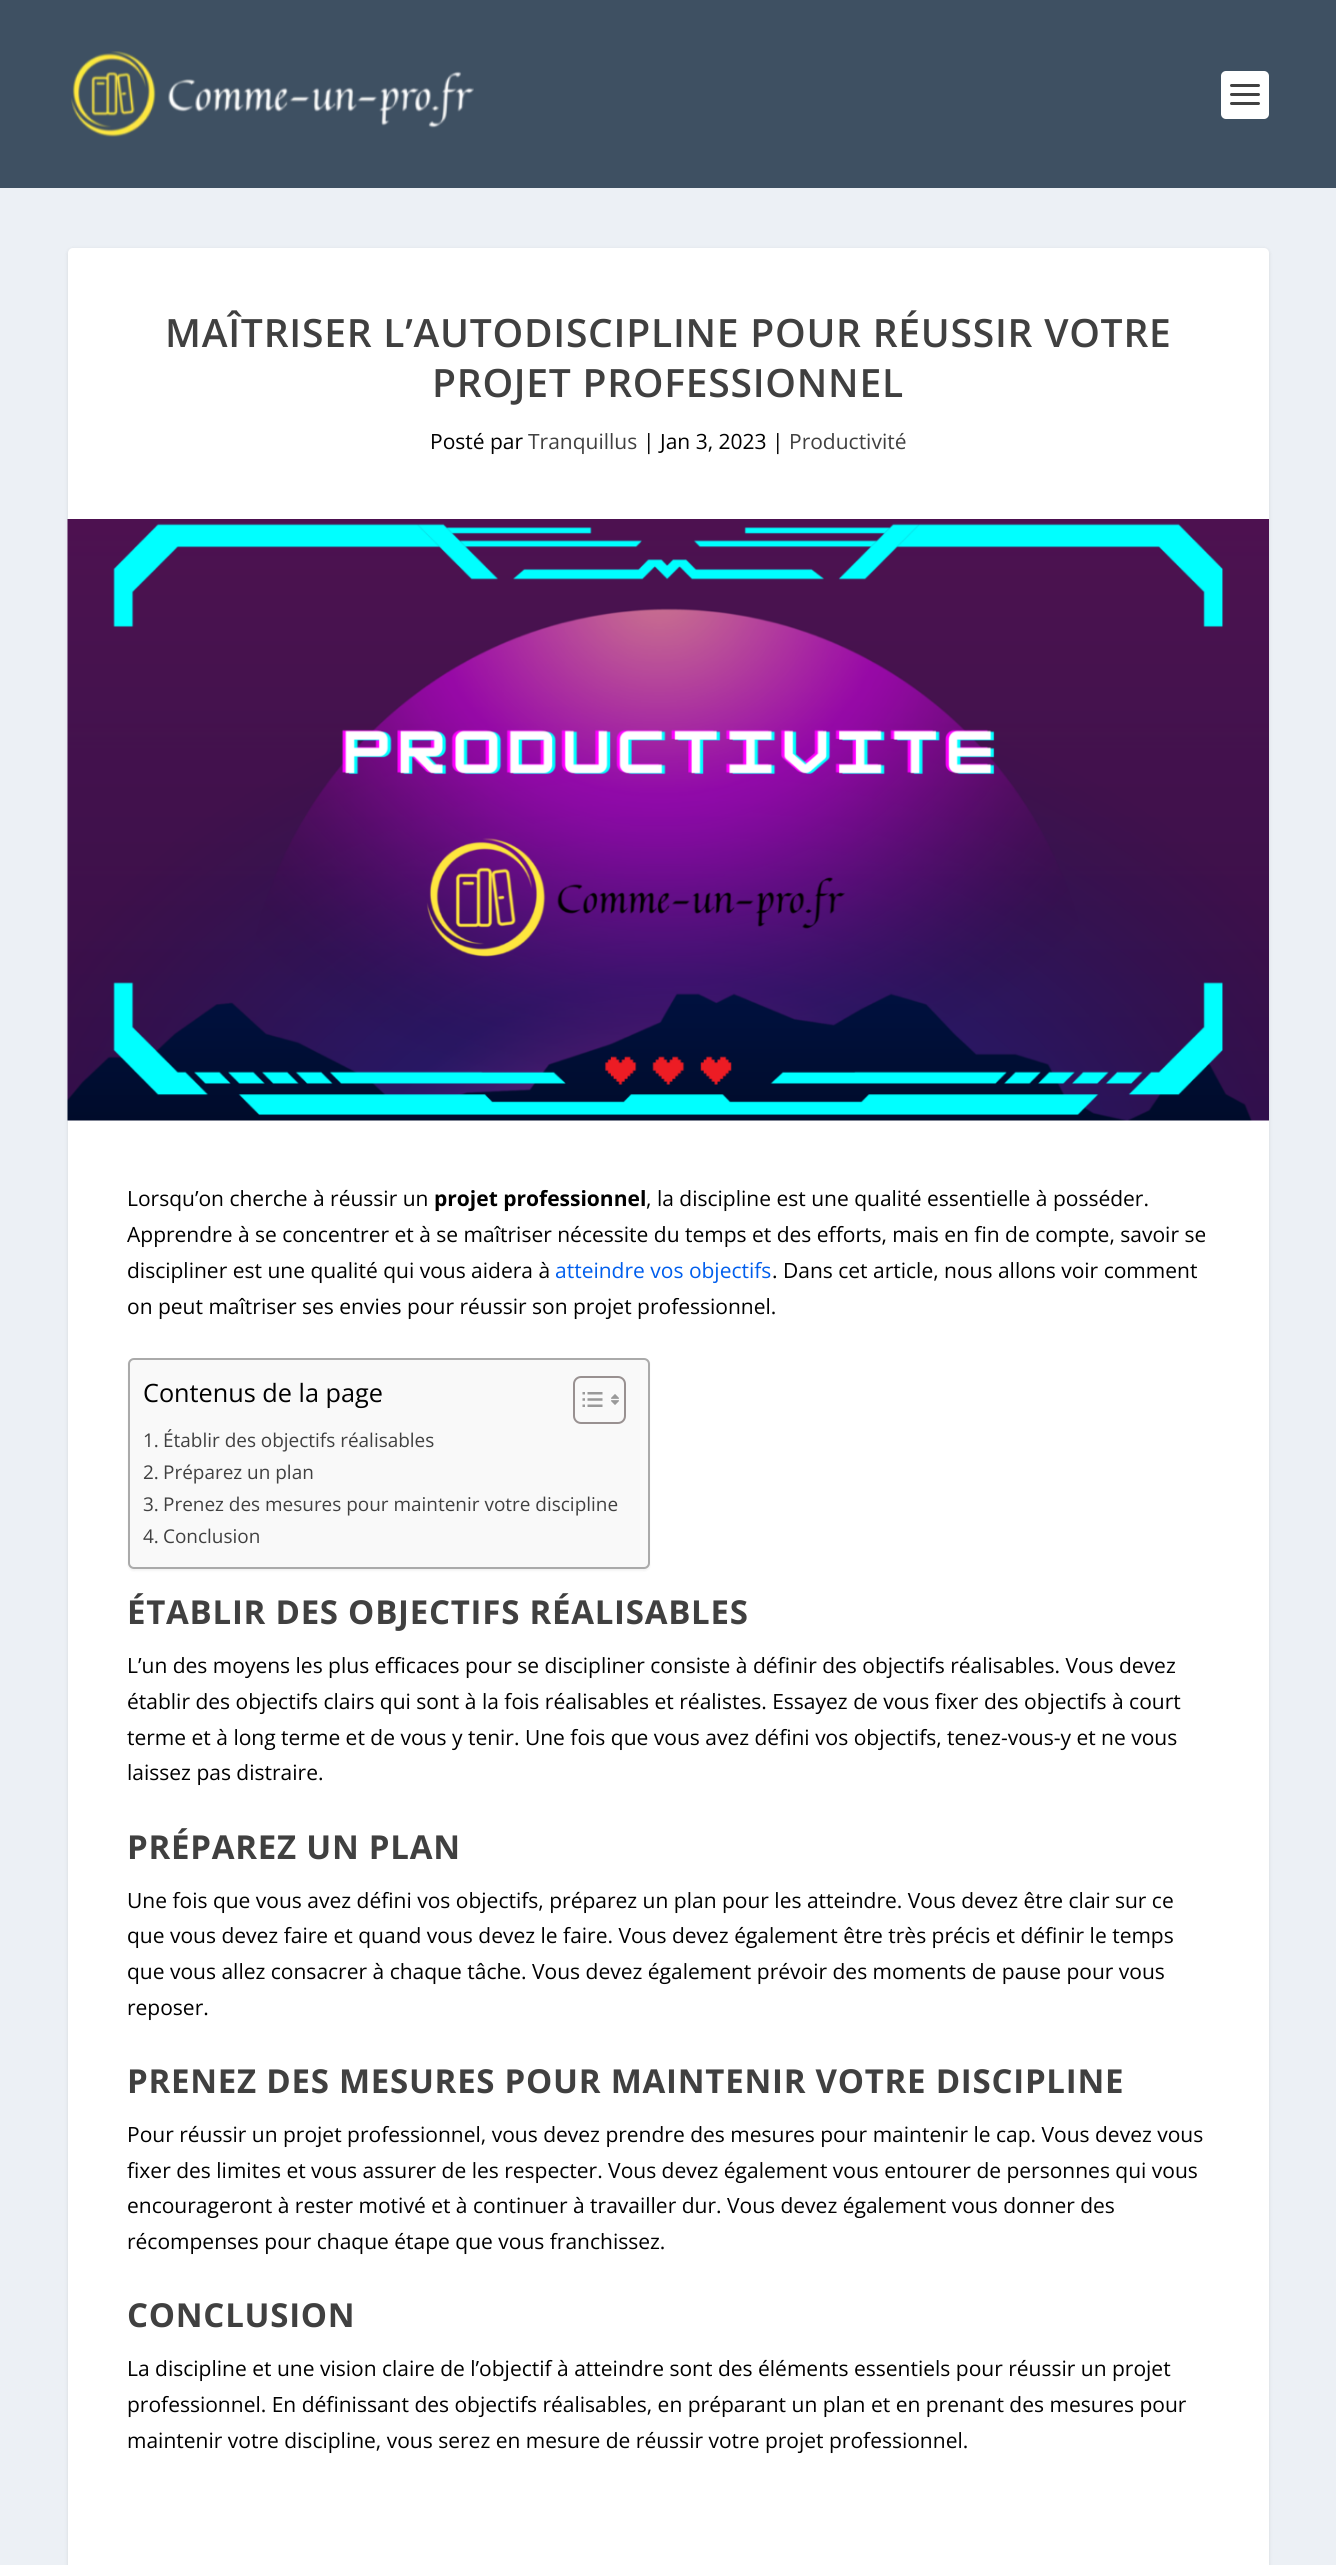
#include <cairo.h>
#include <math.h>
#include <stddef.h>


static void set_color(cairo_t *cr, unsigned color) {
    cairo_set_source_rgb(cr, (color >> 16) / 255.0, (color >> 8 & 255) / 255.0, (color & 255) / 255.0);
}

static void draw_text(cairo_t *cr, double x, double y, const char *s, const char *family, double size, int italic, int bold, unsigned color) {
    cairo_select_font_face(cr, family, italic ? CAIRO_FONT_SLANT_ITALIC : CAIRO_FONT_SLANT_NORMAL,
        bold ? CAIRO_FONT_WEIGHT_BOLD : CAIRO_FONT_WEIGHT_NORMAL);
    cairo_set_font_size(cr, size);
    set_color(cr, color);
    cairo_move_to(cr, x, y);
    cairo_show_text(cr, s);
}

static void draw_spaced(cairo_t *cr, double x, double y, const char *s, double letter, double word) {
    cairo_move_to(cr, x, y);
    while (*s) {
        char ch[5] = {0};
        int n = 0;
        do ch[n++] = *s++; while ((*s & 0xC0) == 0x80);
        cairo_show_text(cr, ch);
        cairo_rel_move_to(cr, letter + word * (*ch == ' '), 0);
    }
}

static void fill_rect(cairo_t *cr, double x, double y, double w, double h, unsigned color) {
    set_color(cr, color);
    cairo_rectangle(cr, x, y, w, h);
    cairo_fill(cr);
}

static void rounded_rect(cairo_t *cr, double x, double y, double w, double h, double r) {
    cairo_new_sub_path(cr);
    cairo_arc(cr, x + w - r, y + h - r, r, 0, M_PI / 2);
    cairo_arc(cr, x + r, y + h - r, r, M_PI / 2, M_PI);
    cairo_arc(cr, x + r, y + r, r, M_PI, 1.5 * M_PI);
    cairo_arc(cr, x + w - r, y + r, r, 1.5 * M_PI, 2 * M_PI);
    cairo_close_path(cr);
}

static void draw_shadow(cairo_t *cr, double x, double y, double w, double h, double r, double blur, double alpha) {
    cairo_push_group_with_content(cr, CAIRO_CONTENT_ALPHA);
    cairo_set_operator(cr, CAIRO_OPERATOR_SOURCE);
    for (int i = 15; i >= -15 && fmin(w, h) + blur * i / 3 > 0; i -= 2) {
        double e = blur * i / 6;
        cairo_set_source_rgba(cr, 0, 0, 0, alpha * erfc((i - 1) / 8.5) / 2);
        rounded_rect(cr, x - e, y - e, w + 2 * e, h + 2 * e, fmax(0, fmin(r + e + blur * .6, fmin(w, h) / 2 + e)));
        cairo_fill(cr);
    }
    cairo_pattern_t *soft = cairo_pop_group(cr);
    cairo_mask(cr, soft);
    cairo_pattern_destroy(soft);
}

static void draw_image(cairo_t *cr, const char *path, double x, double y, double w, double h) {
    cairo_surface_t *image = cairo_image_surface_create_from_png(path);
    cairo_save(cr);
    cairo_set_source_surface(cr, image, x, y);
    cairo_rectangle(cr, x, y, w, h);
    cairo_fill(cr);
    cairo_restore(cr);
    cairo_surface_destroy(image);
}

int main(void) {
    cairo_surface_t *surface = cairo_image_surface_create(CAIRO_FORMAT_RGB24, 1336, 2565);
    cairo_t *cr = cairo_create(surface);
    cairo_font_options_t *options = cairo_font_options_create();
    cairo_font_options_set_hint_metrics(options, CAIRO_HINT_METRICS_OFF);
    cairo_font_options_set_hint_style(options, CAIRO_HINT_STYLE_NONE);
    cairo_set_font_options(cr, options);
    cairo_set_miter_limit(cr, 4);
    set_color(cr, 0xECF0F5);
    cairo_paint(cr);
    fill_rect(cr, 0, 0, 1336, 188, 0x3E5062);
    draw_image(cr, "assets/img1.png", 71, 51, 403, 86);
    set_color(cr, 0xFFFFFF);
    rounded_rect(cr, 1221, 71, 48, 48, 5);
    cairo_fill(cr);
    set_color(cr, 0x404040);
    rounded_rect(cr, 1230, 84, 30, 3, 1.5);
    cairo_fill(cr);
    rounded_rect(cr, 1230, 93, 30, 3, 1.5);
    cairo_fill(cr);
    rounded_rect(cr, 1230, 102, 30, 3, 1.5);
    cairo_fill(cr);
    set_color(cr, 0x000000);
    draw_shadow(cr, 68, 249, 1201, 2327, 5, 2, 0.1);
    set_color(cr, 0xFFFFFF);
    rounded_rect(cr, 68, 248, 1201, 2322, 5);
    cairo_fill(cr);
    cairo_select_font_face(cr, "Open Sans SemiBold", CAIRO_FONT_SLANT_NORMAL, CAIRO_FONT_WEIGHT_NORMAL);
    cairo_set_font_size(cr, 39);
    set_color(cr, 0x404040);
    draw_spaced(cr, 165, 347, "MAÎTRISER L’AUTODISCIPLINE POUR RÉUSSIR VOTRE", 0.75, 0);
    draw_spaced(cr, 432, 397, "PROJET PROFESSIONNEL", 0.75, 0);
    draw_text(cr, 430, 449, "Posté par", "Open Sans", 21, 0, 0, 0x000000);
    draw_text(cr, 528, 449, "Tranquillus", "Open Sans", 21, 0, 0, 0x404040);
    draw_text(cr, 643, 449, "| Jan 3, 2023 |", "Open Sans", 21, 0, 0, 0x000000);
    draw_text(cr, 789, 449, "Productivité", "Open Sans", 21, 0, 0, 0x404040);
    draw_image(cr, "assets/img2.png", 67, 519, 1202, 602);
    draw_text(cr, 127, 1206, "Lorsqu’on cherche à réussir un", "Open Sans", 21, 0, 0, 0x000000);
    draw_text(cr, 434, 1206, "projet professionnel", "Open Sans", 21, 0, 1, 0x000000);
    draw_text(cr, 646, 1206, ", la discipline est une qualité essentielle à posséder.", "Open Sans", 21, 0, 0, 0x000000);
    draw_text(cr, 127, 1242, "Apprendre à se concentrer et à se maîtriser nécessite du temps et des efforts, mais en fin de compte, savoir se", "Open Sans", 21, 0, 0, 0x000000);
    draw_text(cr, 127, 1278, "discipliner est une qualité qui vous aidera à", "Open Sans", 21, 0, 0, 0x000000);
    draw_text(cr, 555, 1278, "atteindre vos objectifs", "Open Sans", 21, 0, 0, 0x005EED);
    draw_text(cr, 772, 1278, ". Dans cet article, nous allons voir comment", "Open Sans", 21, 0, 0, 0x000000);
    draw_text(cr, 127, 1314, "on peut maîtriser ses envies pour réussir son projet professionnel.", "Open Sans", 21, 0, 0, 0x000000);
    set_color(cr, 0x000000);
    draw_shadow(cr, 128, 1359, 522, 212, 6, 1, 0.05);
    set_color(cr, 0xF9F9F9);
    rounded_rect(cr, 129, 1359, 520, 209, 5);
    cairo_fill_preserve(cr);
    set_color(cr, 0xAAAAAA);
    cairo_stroke(cr);
    draw_text(cr, 143, 1402, "Contenus de la page", "Open Sans", 25.25, 0, 0, 0x000000);
    rounded_rect(cr, 574, 1377, 51, 46, 7);
    set_color(cr, 0x999191);
    cairo_stroke(cr);
    draw_image(cr, "assets/img3.png", 582, 1392, 21, 15);
    draw_image(cr, "assets/img4.png", 611, 1394, 8, 11);
    draw_text(cr, 143, 1447, "1.", "Open Sans", 18.95, 0, 0, 0x404040);
    draw_text(cr, 163, 1447, "Établir des objectifs réalisables", "Open Sans", 18.95, 0, 0, 0x404040);
    draw_text(cr, 143, 1479, "2.", "Open Sans", 18.95, 0, 0, 0x404040);
    draw_text(cr, 163, 1479, "Préparez un plan", "Open Sans", 18.95, 0, 0, 0x404040);
    draw_text(cr, 143, 1511, "3.", "Open Sans", 18.95, 0, 0, 0x404040);
    draw_text(cr, 163, 1511, "Prenez des mesures pour maintenir votre discipline", "Open Sans", 18.95, 0, 0, 0x404040);
    draw_text(cr, 143, 1543, "4.", "Open Sans", 18.95, 0, 0, 0x404040);
    draw_text(cr, 163, 1543, "Conclusion", "Open Sans", 18.95, 0, 0, 0x404040);
    cairo_select_font_face(cr, "Open Sans", CAIRO_FONT_SLANT_NORMAL, CAIRO_FONT_WEIGHT_BOLD);
    cairo_set_font_size(cr, 33);
    draw_spaced(cr, 127, 1624, "ÉTABLIR DES OBJECTIFS RÉALISABLES", 0.75, 0);
    draw_text(cr, 127, 1673, "L’un des moyens les plus efficaces pour se discipliner consiste à définir des objectifs réalisables. Vous devez", "Open Sans", 21, 0, 0, 0x000000);
    draw_text(cr, 127, 1709, "établir des objectifs clairs qui sont à la fois réalisables et réalistes. Essayez de vous fixer des objectifs à court", "Open Sans", 21, 0, 0, 0x000000);
    draw_text(cr, 127, 1745, "terme et à long terme et de vous y tenir. Une fois que vous avez défini vos objectifs, tenez-vous-y et ne vous", "Open Sans", 21, 0, 0, 0x000000);
    draw_text(cr, 127, 1780, "laissez pas distraire.", "Open Sans", 21, 0, 0, 0x000000);
    cairo_select_font_face(cr, "Open Sans", CAIRO_FONT_SLANT_NORMAL, CAIRO_FONT_WEIGHT_BOLD);
    cairo_set_font_size(cr, 33);
    set_color(cr, 0x404040);
    draw_spaced(cr, 127, 1859, "PRÉPAREZ UN PLAN", 0.75, 0);
    draw_text(cr, 127, 1908, "Une fois que vous avez défini vos objectifs, préparez un plan pour les atteindre. Vous devez être clair sur ce", "Open Sans", 21, 0, 0, 0x000000);
    draw_text(cr, 127, 1943, "que vous devez faire et quand vous devez le faire. Vous devez également être très précis et définir le temps", "Open Sans", 21, 0, 0, 0x000000);
    draw_text(cr, 127, 1979, "que vous allez consacrer à chaque tâche. Vous devez également prévoir des moments de pause pour vous", "Open Sans", 21, 0, 0, 0x000000);
    draw_text(cr, 127, 2015, "reposer.", "Open Sans", 21, 0, 0, 0x000000);
    cairo_select_font_face(cr, "Open Sans", CAIRO_FONT_SLANT_NORMAL, CAIRO_FONT_WEIGHT_BOLD);
    cairo_set_font_size(cr, 33);
    set_color(cr, 0x404040);
    draw_spaced(cr, 127, 2093, "PRENEZ DES MESURES POUR MAINTENIR VOTRE DISCIPLINE", 0.75, 0);
    draw_text(cr, 127, 2142, "Pour réussir un projet professionnel, vous devez prendre des mesures pour maintenir le cap. Vous devez vous", "Open Sans", 21, 0, 0, 0x000000);
    draw_text(cr, 127, 2178, "fixer des limites et vous assurer de les respecter. Vous devez également vous entourer de personnes qui vous", "Open Sans", 21, 0, 0, 0x000000);
    draw_text(cr, 127, 2213, "encourageront à rester motivé et à continuer à travailler dur. Vous devez également vous donner des", "Open Sans", 21, 0, 0, 0x000000);
    draw_text(cr, 127, 2249, "récompenses pour chaque étape que vous franchissez.", "Open Sans", 21, 0, 0, 0x000000);
    cairo_select_font_face(cr, "Open Sans", CAIRO_FONT_SLANT_NORMAL, CAIRO_FONT_WEIGHT_BOLD);
    cairo_set_font_size(cr, 33);
    set_color(cr, 0x404040);
    draw_spaced(cr, 127, 2327, "CONCLUSION", 0.75, 0);
    draw_text(cr, 127, 2376, "La discipline et une vision claire de l’objectif à atteindre sont des éléments essentiels pour réussir un projet", "Open Sans", 21, 0, 0, 0x000000);
    draw_text(cr, 127, 2412, "professionnel. En définissant des objectifs réalisables, en préparant un plan et en prenant des mesures pour", "Open Sans", 21, 0, 0, 0x000000);
    draw_text(cr, 127, 2448, "maintenir votre discipline, vous serez en mesure de réussir votre projet professionnel.", "Open Sans", 21, 0, 0, 0x000000);
    cairo_surface_write_to_png(surface, "output.png");
    cairo_font_options_destroy(options);
    cairo_destroy(cr);
    cairo_surface_destroy(surface);
    return 0;
}
